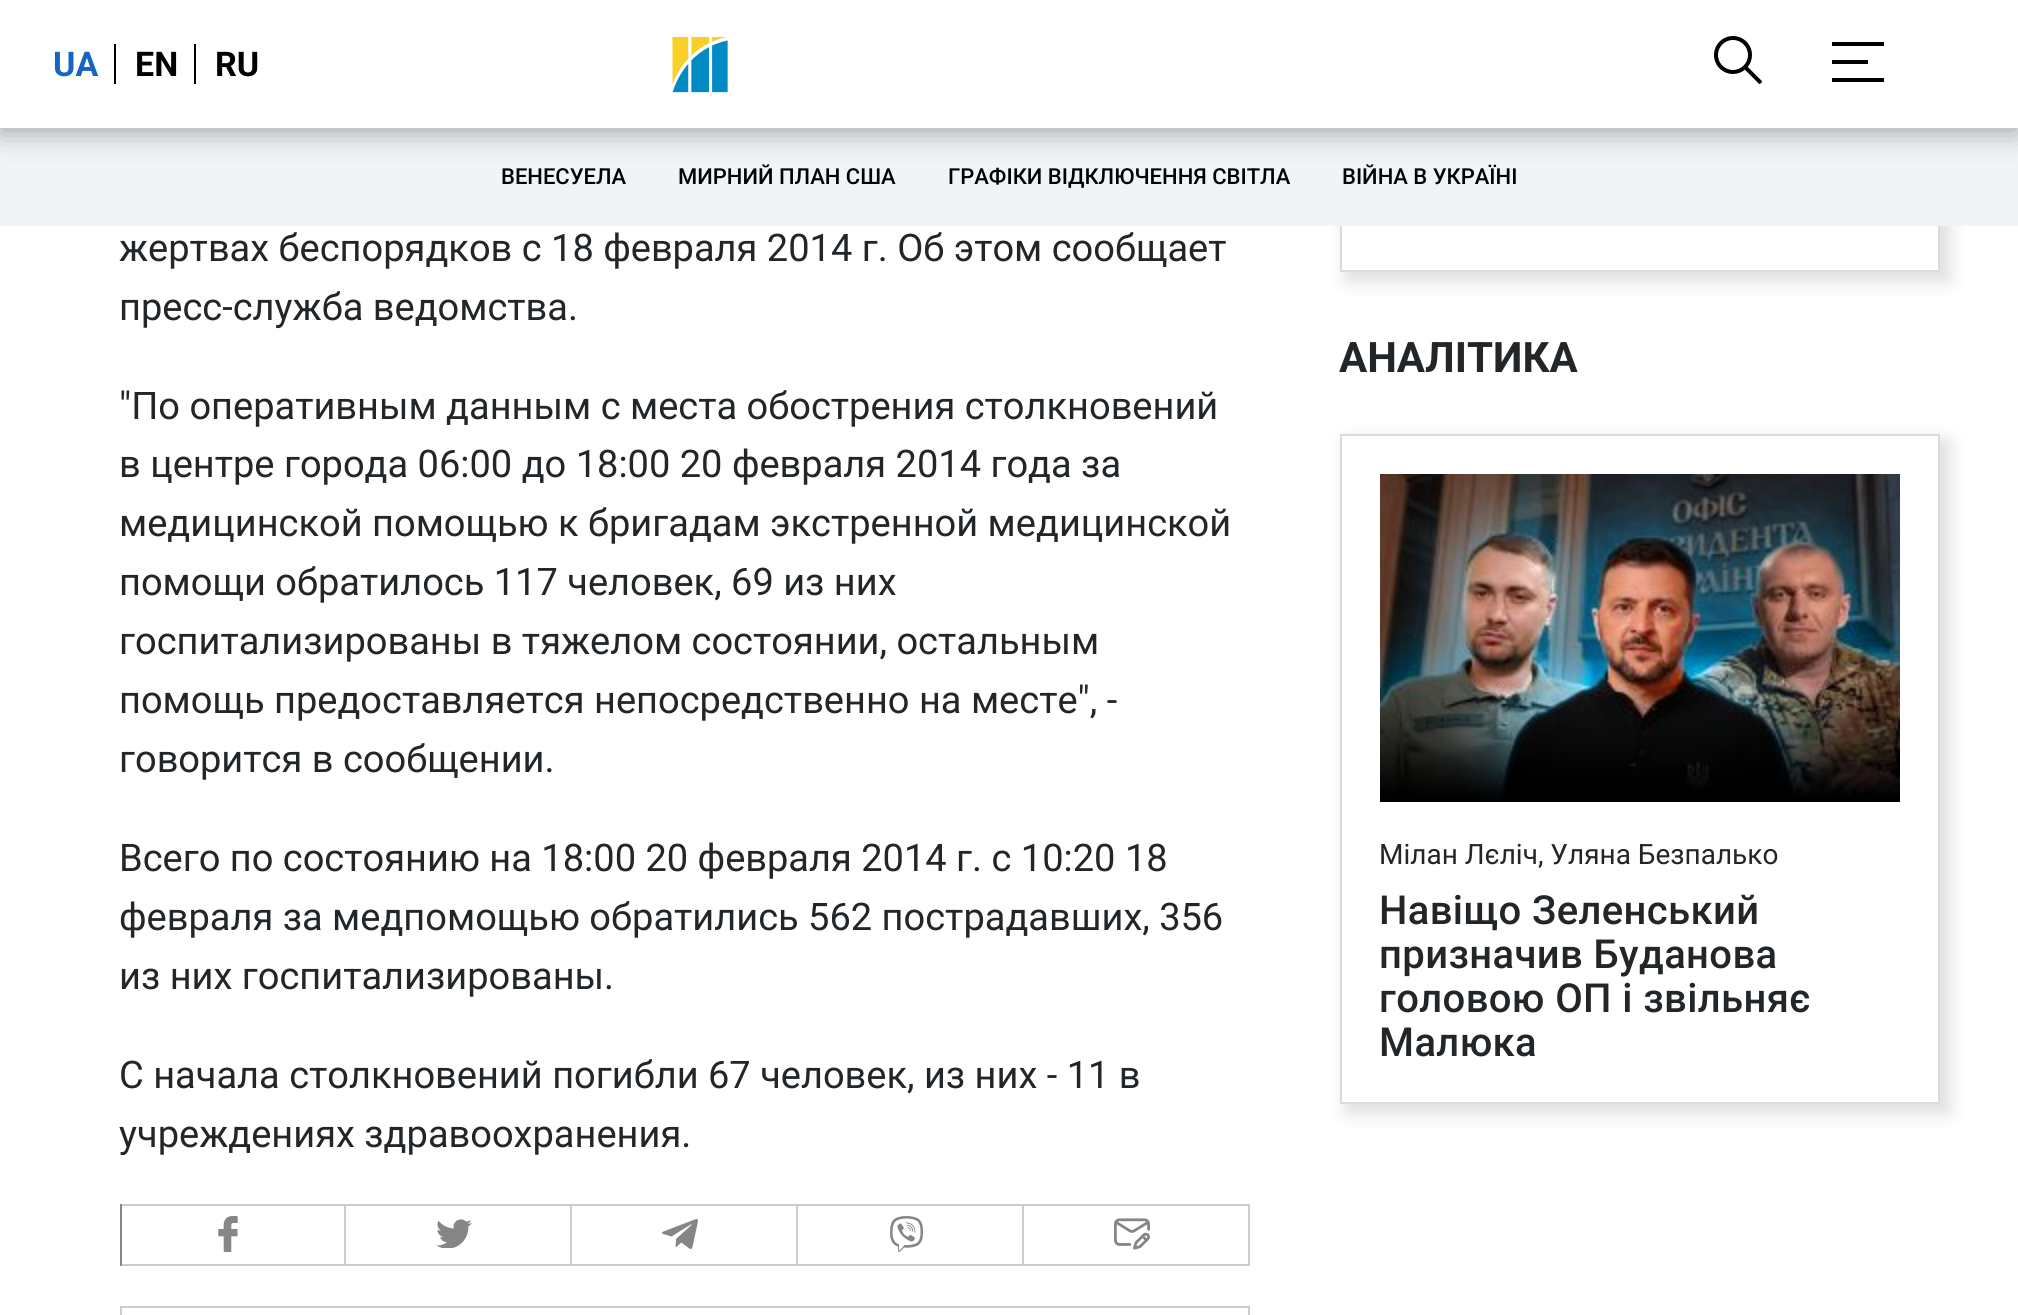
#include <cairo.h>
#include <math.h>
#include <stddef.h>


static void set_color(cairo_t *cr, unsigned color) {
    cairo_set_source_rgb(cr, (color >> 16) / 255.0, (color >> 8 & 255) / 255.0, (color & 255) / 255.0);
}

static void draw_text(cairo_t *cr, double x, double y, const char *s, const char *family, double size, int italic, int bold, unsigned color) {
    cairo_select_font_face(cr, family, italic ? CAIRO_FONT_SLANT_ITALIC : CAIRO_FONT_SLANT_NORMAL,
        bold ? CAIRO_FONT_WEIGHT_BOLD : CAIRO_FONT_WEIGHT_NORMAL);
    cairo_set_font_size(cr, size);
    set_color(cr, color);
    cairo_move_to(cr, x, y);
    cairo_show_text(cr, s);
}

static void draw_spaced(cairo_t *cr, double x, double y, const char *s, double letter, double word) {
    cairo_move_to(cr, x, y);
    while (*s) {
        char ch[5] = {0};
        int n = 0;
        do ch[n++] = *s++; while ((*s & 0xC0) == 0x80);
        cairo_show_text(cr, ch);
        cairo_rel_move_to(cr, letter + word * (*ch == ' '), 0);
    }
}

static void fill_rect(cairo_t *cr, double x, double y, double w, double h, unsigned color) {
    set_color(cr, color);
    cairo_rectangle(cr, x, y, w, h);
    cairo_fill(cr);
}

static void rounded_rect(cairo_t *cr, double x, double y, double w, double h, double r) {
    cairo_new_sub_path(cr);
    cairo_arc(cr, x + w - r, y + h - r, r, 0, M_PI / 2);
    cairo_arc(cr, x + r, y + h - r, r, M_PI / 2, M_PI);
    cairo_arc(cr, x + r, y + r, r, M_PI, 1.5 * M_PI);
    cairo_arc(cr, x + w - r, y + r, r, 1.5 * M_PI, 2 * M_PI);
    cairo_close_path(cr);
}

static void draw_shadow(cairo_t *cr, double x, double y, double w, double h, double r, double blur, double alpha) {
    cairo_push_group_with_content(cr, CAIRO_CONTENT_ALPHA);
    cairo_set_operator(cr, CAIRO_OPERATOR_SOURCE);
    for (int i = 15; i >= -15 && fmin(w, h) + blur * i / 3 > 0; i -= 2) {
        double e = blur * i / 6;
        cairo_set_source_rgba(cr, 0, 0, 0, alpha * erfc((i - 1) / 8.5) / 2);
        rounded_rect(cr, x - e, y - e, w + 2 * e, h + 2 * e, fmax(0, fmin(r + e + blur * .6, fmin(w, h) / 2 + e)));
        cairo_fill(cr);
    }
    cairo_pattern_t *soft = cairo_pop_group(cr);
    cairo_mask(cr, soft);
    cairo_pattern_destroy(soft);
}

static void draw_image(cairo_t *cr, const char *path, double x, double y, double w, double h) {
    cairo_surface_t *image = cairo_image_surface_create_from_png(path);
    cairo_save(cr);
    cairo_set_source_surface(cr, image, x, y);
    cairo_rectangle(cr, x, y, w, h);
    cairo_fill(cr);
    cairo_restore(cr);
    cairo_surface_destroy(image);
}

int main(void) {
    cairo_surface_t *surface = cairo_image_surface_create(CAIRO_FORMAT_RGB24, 2018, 1315);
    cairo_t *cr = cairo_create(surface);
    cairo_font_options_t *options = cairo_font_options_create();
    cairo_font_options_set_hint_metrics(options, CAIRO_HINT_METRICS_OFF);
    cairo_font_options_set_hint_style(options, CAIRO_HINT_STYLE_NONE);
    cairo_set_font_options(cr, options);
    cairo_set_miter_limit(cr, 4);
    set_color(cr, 0xFFFFFF);
    cairo_paint(cr);
    cairo_save(cr);
    cairo_set_fill_rule(cr, CAIRO_FILL_RULE_EVEN_ODD);
    cairo_new_path(cr);
    cairo_move_to(cr, 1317, 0);
    cairo_line_to(cr, 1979, 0);
    cairo_line_to(cr, 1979, 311);
    cairo_line_to(cr, 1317, 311);
    cairo_close_path(cr);
    cairo_move_to(cr, 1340, -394);
    cairo_line_to(cr, 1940, -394);
    cairo_line_to(cr, 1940, 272);
    cairo_line_to(cr, 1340, 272);
    cairo_close_path(cr);
    cairo_clip(cr);
    set_color(cr, 0x000000);
    draw_shadow(cr, 1348, -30, 600, 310, 0, 10, 0.15);
    cairo_restore(cr);
    cairo_rectangle(cr, 1341, -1, 598, 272);
    set_color(cr, 0xDBDBDB);
    cairo_stroke(cr);
    fill_rect(cr, 0, 128, 2018, 98, 0xF1F4F6);
    set_color(cr, 0x000000);
    draw_shadow(cr, 0, 2, 2018, 128, 0, 15, 0.38);
    fill_rect(cr, 0, 0, 2018, 128, 0xFFFFFF);
    draw_text(cr, 53, 76, "UA", "Roboto", 34, 0, 1, 0x1665C1);
    fill_rect(cr, 114, 44, 2, 40, 0x000000);
    draw_text(cr, 135, 76, "EN", "Roboto", 34, 0, 1, 0x000000);
    fill_rect(cr, 194, 44, 2, 40, 0x000000);
    draw_text(cr, 215, 76, "RU", "Roboto", 34, 0, 1, 0x000000);
    draw_image(cr, "assets/img1.png", 672, 36, 56, 57);
    draw_image(cr, "assets/img2.png", 1714, 36, 48, 48);
    fill_rect(cr, 1832, 42, 52, 4, 0x000000);
    fill_rect(cr, 1832, 60, 36, 4, 0x000000);
    fill_rect(cr, 1832, 78, 52, 4, 0x000000);
    draw_text(cr, 501, 184, "ВЕНЕСУЕЛА", "Roboto Medium", 22, 0, 0, 0x000000);
    draw_text(cr, 678, 184, "МИРНИЙ ПЛАН США", "Roboto Medium", 22, 0, 0, 0x000000);
    draw_text(cr, 948, 184, "ГРАФІКИ ВІДКЛЮЧЕННЯ СВІТЛА", "Roboto Medium", 22, 0, 0, 0x000000);
    draw_text(cr, 1342, 184, "ВІЙНА В УКРАЇНІ", "Roboto Medium", 22, 0, 0, 0x000000);
    draw_text(cr, 119, 261, "жертвах беспорядков с 18 февраля 2014 г. Об этом сообщает", "Roboto", 38, 0, 0, 0x222629);
    draw_text(cr, 119, 320, "пресс-служба ведомства.", "Roboto", 38, 0, 0, 0x222629);
    draw_text(cr, 119, 419, "\"По оперативным данным с места обострения столкновений", "Roboto", 38, 0, 0, 0x222629);
    draw_text(cr, 119, 477, "в центре города 06:00 до 18:00 20 февраля 2014 года за", "Roboto", 38, 0, 0, 0x222629);
    draw_text(cr, 119, 536, "медицинской помощью к бригадам экстренной медицинской", "Roboto", 38, 0, 0, 0x222629);
    draw_text(cr, 119, 595, "помощи обратилось 117 человек, 69 из них", "Roboto", 38, 0, 0, 0x222629);
    draw_text(cr, 119, 654, "госпитализированы в тяжелом состоянии, остальным", "Roboto", 38, 0, 0, 0x222629);
    draw_text(cr, 119, 713, "помощь предоставляется непосредственно на месте\", -", "Roboto", 38, 0, 0, 0x222629);
    draw_text(cr, 119, 772, "говорится в сообщении.", "Roboto", 38, 0, 0, 0x222629);
    draw_text(cr, 119, 871, "Всего по состоянию на 18:00 20 февраля 2014 г. с 10:20 18", "Roboto", 38, 0, 0, 0x222629);
    draw_text(cr, 119, 930, "февраля за медпомощью обратились 562 пострадавших, 356", "Roboto", 38, 0, 0, 0x222629);
    draw_text(cr, 119, 989, "из них госпитализированы.", "Roboto", 38, 0, 0, 0x222629);
    draw_text(cr, 119, 1088, "С начала столкновений погибли 67 человек, из них - 11 в", "Roboto", 38, 0, 0, 0x222629);
    draw_text(cr, 119, 1147, "учреждениях здравоохранения.", "Roboto", 38, 0, 0, 0x222629);
    fill_rect(cr, 120, 1204, 1130, 2, 0xCCCCCC);
    fill_rect(cr, 344, 1204, 2, 62, 0xCCCCCC);
    fill_rect(cr, 120, 1264, 226, 2, 0xCCCCCC);
    fill_rect(cr, 120, 1204, 2, 62, 0x868686);
    draw_image(cr, "assets/img3.png", 218, 1216, 20, 36);
    fill_rect(cr, 570, 1204, 2, 62, 0xCCCCCC);
    fill_rect(cr, 346, 1264, 226, 2, 0xCCCCCC);
    draw_image(cr, "assets/img4.png", 436, 1219, 36, 29);
    fill_rect(cr, 796, 1204, 2, 62, 0xCCCCCC);
    fill_rect(cr, 572, 1264, 226, 2, 0xCCCCCC);
    draw_image(cr, "assets/img5.png", 662, 1219, 36, 30);
    fill_rect(cr, 1022, 1204, 2, 62, 0xCCCCCC);
    fill_rect(cr, 798, 1264, 226, 2, 0xCCCCCC);
    draw_image(cr, "assets/img6.png", 890, 1216, 34, 36);
    fill_rect(cr, 1248, 1204, 2, 62, 0xCCCCCC);
    fill_rect(cr, 1024, 1264, 226, 2, 0xCCCCCC);
    draw_image(cr, "assets/img7.png", 1114, 1218, 36, 32);
    cairo_rectangle(cr, 121, 1307, 1128, 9);
    cairo_stroke(cr);
    draw_text(cr, 1339, 372, "АНАЛІТИКА", "Roboto", 42, 0, 1, 0x222629);
    cairo_save(cr);
    cairo_set_fill_rule(cr, CAIRO_FILL_RULE_EVEN_ODD);
    cairo_new_path(cr);
    cairo_move_to(cr, 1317, 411);
    cairo_line_to(cr, 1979, 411);
    cairo_line_to(cr, 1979, 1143);
    cairo_line_to(cr, 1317, 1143);
    cairo_close_path(cr);
    cairo_move_to(cr, 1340, 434);
    cairo_line_to(cr, 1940, 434);
    cairo_line_to(cr, 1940, 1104);
    cairo_line_to(cr, 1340, 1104);
    cairo_close_path(cr);
    cairo_clip(cr);
    set_color(cr, 0x000000);
    draw_shadow(cr, 1348, 442, 600, 670, 0, 10, 0.15);
    cairo_restore(cr);
    cairo_rectangle(cr, 1341, 435, 598, 668);
    set_color(cr, 0xDBDBDB);
    cairo_stroke(cr);
    draw_image(cr, "assets/img8.png", 1380, 474, 520, 328);
    draw_text(cr, 1379, 864, "Мілан Лєліч, Уляна Безпалько", "Roboto", 28, 0, 0, 0x222629);
    cairo_select_font_face(cr, "Roboto Medium", CAIRO_FONT_SLANT_NORMAL, CAIRO_FONT_WEIGHT_NORMAL);
    cairo_set_font_size(cr, 40);
    draw_spaced(cr, 1379, 924, "Навіщо Зеленський", 0.4, 0);
    draw_spaced(cr, 1379, 968, "призначив Буданова", 0.4, 0);
    draw_spaced(cr, 1379, 1012, "головою ОП і звільняє", 0.4, 0);
    draw_spaced(cr, 1379, 1056, "Малюка", 0.4, 0);
    cairo_surface_write_to_png(surface, "output.png");
    cairo_font_options_destroy(options);
    cairo_destroy(cr);
    cairo_surface_destroy(surface);
    return 0;
}
